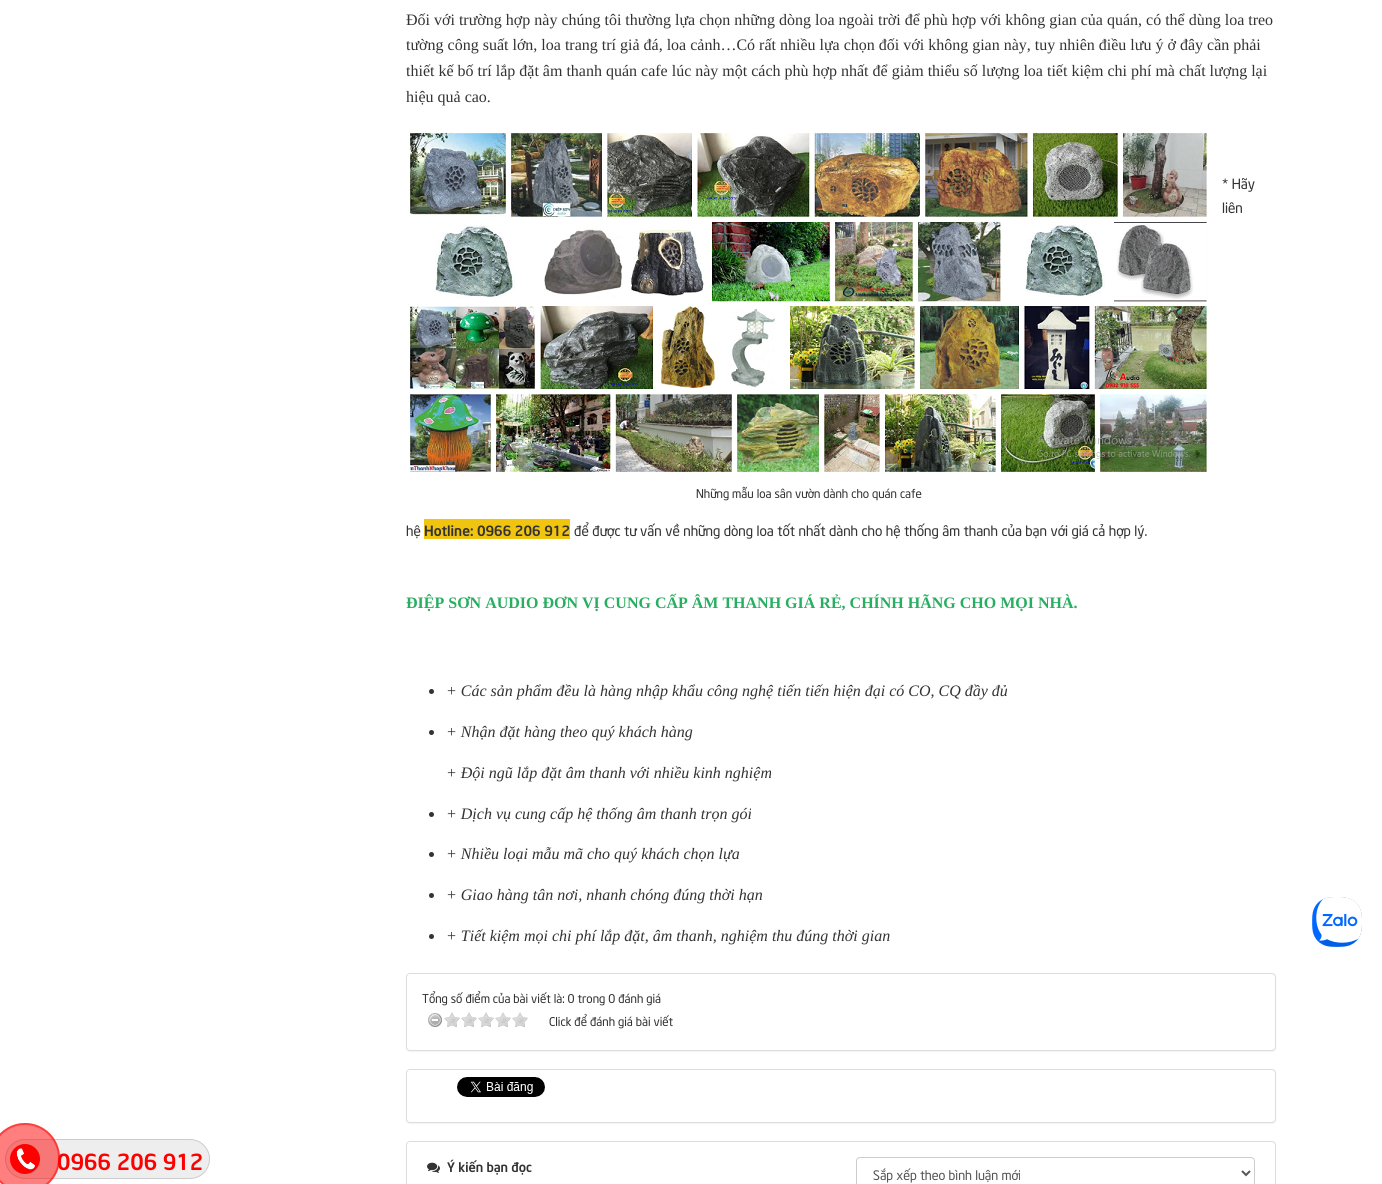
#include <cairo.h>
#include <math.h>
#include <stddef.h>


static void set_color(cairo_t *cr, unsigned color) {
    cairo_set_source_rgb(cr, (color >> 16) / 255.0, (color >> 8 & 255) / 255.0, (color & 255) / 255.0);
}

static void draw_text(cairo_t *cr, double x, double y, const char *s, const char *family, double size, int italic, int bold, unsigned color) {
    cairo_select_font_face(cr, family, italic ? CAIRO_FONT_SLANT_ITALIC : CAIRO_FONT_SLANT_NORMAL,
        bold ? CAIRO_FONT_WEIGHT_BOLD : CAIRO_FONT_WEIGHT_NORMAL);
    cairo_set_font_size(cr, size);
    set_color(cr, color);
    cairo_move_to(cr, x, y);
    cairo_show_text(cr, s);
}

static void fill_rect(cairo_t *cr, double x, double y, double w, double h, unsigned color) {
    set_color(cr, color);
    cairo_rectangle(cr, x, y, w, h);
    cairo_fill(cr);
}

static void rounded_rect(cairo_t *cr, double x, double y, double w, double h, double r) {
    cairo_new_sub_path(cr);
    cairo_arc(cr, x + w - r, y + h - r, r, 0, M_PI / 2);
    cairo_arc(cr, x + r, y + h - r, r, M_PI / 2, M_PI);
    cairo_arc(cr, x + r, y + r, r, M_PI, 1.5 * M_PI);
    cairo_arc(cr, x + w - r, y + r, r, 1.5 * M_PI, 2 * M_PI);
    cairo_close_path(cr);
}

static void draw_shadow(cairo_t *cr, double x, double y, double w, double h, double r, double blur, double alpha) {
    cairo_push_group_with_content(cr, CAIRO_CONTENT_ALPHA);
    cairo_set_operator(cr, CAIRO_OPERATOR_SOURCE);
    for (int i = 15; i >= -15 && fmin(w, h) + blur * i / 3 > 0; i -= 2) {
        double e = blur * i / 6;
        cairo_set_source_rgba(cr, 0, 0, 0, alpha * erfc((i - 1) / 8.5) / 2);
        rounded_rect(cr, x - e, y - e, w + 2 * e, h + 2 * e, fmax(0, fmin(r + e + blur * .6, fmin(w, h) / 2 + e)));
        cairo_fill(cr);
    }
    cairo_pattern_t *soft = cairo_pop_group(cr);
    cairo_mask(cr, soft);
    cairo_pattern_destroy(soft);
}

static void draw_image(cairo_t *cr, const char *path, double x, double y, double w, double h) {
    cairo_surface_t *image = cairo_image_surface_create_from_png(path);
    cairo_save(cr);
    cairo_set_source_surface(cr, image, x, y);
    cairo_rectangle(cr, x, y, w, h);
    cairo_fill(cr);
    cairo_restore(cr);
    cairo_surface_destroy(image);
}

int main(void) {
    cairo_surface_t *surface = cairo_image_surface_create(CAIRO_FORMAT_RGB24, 1382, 1184);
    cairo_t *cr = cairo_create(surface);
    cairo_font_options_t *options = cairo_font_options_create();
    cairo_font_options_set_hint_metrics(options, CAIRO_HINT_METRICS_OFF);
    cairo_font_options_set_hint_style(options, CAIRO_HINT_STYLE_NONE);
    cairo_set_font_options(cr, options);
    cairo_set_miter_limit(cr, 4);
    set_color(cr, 0xFFFFFF);
    cairo_paint(cr);
    set_color(cr, 0xEEEEEE);
    rounded_rect(cr, 5.5, 1139.5, 204, 39, 19.5);
    cairo_fill_preserve(cr);
    set_color(cr, 0xCCCCCC);
    cairo_set_line_width(cr, 1);
    cairo_stroke(cr);
    draw_text(cr, 57, 1170, "0966 206 912", "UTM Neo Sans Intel", 22, 0, 1, 0xFF0000);
    cairo_set_source_rgba(cr, 1, 0, 0, 0.5);
    cairo_new_path(cr);
    cairo_arc(cr, 25, 1158, 35, 0, 2 * M_PI);
    cairo_fill(cr);
    cairo_arc(cr, 25, 1158, 34, 0, 2 * M_PI);
    cairo_set_line_width(cr, 2);
    cairo_stroke(cr);
    set_color(cr, 0xFF0000);
    cairo_arc(cr, 25, 1159, 15, 0, 2 * M_PI);
    cairo_fill(cr);
    draw_image(cr, "assets/img1.png", 16, 1148, 19, 22);
    draw_text(cr, 406, 25, "Đối với trường hợp này chúng tôi thường lựa chọn những dòng loa ngoài trời để phù hợp với không gian của quán, có thể dùng loa treo", "Liberation Serif", 16, 0, 0, 0x333333);
    draw_text(cr, 406, 50, "tường công suất lớn, loa trang trí giả đá, loa cảnh…Có rất nhiều lựa chọn đối với không gian này, tuy nhiên điều lưu ý ở đây cần phải", "Liberation Serif", 16, 0, 0, 0x333333);
    draw_text(cr, 406, 76, "thiết kế bố trí lắp đặt âm thanh quán cafe lúc này một cách phù hợp nhất để giảm thiểu số lượng loa tiết kiệm chi phí mà chất lượng lại", "Liberation Serif", 16, 0, 0, 0x333333);
    draw_text(cr, 406, 102, "hiệu quả cao.", "Liberation Serif", 16, 0, 0, 0x333333);
    draw_text(cr, 1222, 189, "* Hãy", "UTM Neo Sans Intel", 14, 0, 0, 0x333333);
    draw_text(cr, 1222, 213, "liên", "UTM Neo Sans Intel", 14, 0, 0, 0x333333);
    draw_text(cr, 406, 536, "hệ", "UTM Neo Sans Intel", 14, 0, 0, 0x333333);
    fill_rect(cr, 424, 519, 146, 20, 0xF1C40F);
    draw_text(cr, 424, 536, "Hotline: 0966 206 912", "UTM Neo Sans Intel", 14, 0, 1, 0x333333);
    draw_text(cr, 574, 536, "để được tư vấn về những dòng loa tốt nhất dành cho hệ thống âm thanh của bạn với giá cả hợp lý.", "UTM Neo Sans Intel", 14, 0, 0, 0x333333);
    draw_text(cr, 406, 608, "ĐIỆP SƠN AUDIO ĐƠN VỊ CUNG CẤP ÂM THANH GIÁ RẺ, CHÍNH HÃNG CHO MỌI NHÀ.", "Liberation Serif", 16, 0, 1, 0x27AE60);
    draw_image(cr, "assets/img2.png", 410, 133, 797, 339);
    draw_text(cr, 696, 498, "Những mẫu loa sân vườn dành cho quán cafe", "UTM Neo Sans Intel", 12, 0, 0, 0x333333);
    cairo_new_path(cr);
    cairo_arc(cr, 431.5, 691.5, 2.5, 0, 2 * M_PI);
    cairo_fill(cr);
    draw_text(cr, 446, 696, "+ Các sản phẩm đều là hàng nhập khẩu công nghệ tiến tiến hiện đại có CO, CQ đầy đủ", "Liberation Serif", 16, 1, 0, 0x333333);
    cairo_new_path(cr);
    cairo_arc(cr, 431.5, 732.5, 2.5, 0, 2 * M_PI);
    cairo_fill(cr);
    draw_text(cr, 446, 737, "+ Nhận đặt hàng theo quý khách hàng", "Liberation Serif", 16, 1, 0, 0x333333);
    draw_text(cr, 446, 778, "+ Đội ngũ lắp đặt âm thanh với nhiều kinh nghiệm", "Liberation Serif", 16, 1, 0, 0x333333);
    cairo_new_path(cr);
    cairo_arc(cr, 431.5, 814.5, 2.5, 0, 2 * M_PI);
    cairo_fill(cr);
    draw_text(cr, 446, 819, "+ Dịch vụ cung cấp hệ thống âm thanh trọn gói", "Liberation Serif", 16, 1, 0, 0x333333);
    cairo_new_path(cr);
    cairo_arc(cr, 431.5, 854.5, 2.5, 0, 2 * M_PI);
    cairo_fill(cr);
    draw_text(cr, 446, 859, "+ Nhiều loại mẫu mã cho quý khách chọn lựa", "Liberation Serif", 16, 1, 0, 0x333333);
    cairo_new_path(cr);
    cairo_arc(cr, 431.5, 895.5, 2.5, 0, 2 * M_PI);
    cairo_fill(cr);
    draw_text(cr, 446, 900, "+ Giao hàng tân nơi, nhanh chóng đúng thời hạn", "Liberation Serif", 16, 1, 0, 0x333333);
    cairo_new_path(cr);
    cairo_arc(cr, 431.5, 936.5, 2.5, 0, 2 * M_PI);
    cairo_fill(cr);
    draw_text(cr, 446, 941, "+ Tiết kiệm mọi chi phí lắp đặt, âm thanh, nghiệm thu đúng thời gian", "Liberation Serif", 16, 1, 0, 0x333333);
    set_color(cr, 0x000000);
    draw_shadow(cr, 406, 974, 870, 78, 4, 0.5, 0.05);
    set_color(cr, 0xFFFFFF);
    rounded_rect(cr, 406.5, 973.5, 869, 77, 3.5);
    cairo_fill_preserve(cr);
    set_color(cr, 0xDDDDDD);
    cairo_set_line_width(cr, 1);
    cairo_stroke(cr);
    draw_text(cr, 422, 1003, "Tổng số điểm của bài viết là: 0 trong 0 đánh giá", "UTM Neo Sans Intel", 12, 0, 0, 0x333333);
    draw_image(cr, "assets/img3.png", 428, 1013, 14, 14);
    draw_image(cr, "assets/img4.png", 444, 1012, 16, 15);
    draw_image(cr, "assets/img4.png", 461, 1012, 16, 15);
    draw_image(cr, "assets/img4.png", 478, 1012, 16, 15);
    draw_image(cr, "assets/img4.png", 495, 1012, 16, 15);
    draw_image(cr, "assets/img4.png", 512, 1012, 16, 15);
    draw_text(cr, 549, 1026, "Click để đánh giá bài viết", "UTM Neo Sans Intel", 12, 0, 0, 0x333333);
    set_color(cr, 0x000000);
    draw_shadow(cr, 406, 1070, 870, 54, 4, 0.5, 0.05);
    set_color(cr, 0xFFFFFF);
    rounded_rect(cr, 406.5, 1069.5, 869, 53, 3.5);
    cairo_fill_preserve(cr);
    set_color(cr, 0xDDDDDD);
    cairo_stroke(cr);
    draw_image(cr, "assets/img5.png", 457, 1077, 88, 20);
    rounded_rect(cr, 406.5, 1141.5, 869, 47, 3.5);
    cairo_stroke(cr);
    draw_image(cr, "assets/img6.png", 427, 1162, 13, 11);
    draw_text(cr, 447, 1172, "Ý kiến bạn đọc", "UTM Neo Sans Intel", 13, 0, 1, 0x333333);
    rounded_rect(cr, 856.5, 1157.5, 398, 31, 3.5);
    set_color(cr, 0xCCCCCC);
    cairo_stroke(cr);
    cairo_new_path(cr);
    cairo_move_to(cr, 1242, 1171);
    cairo_line_to(cr, 1246, 1175);
    cairo_line_to(cr, 1250, 1171);
    set_color(cr, 0x555555);
    cairo_set_line_width(cr, 2);
    cairo_stroke(cr);
    draw_text(cr, 873, 1180, "Sắp xếp theo bình luận mới", "UTM Neo Sans Intel", 13, 0, 0, 0x555555);
    draw_image(cr, "assets/img7.png", 1312, 897, 50, 50);
    cairo_surface_write_to_png(surface, "output.png");
    cairo_font_options_destroy(options);
    cairo_destroy(cr);
    cairo_surface_destroy(surface);
    return 0;
}
